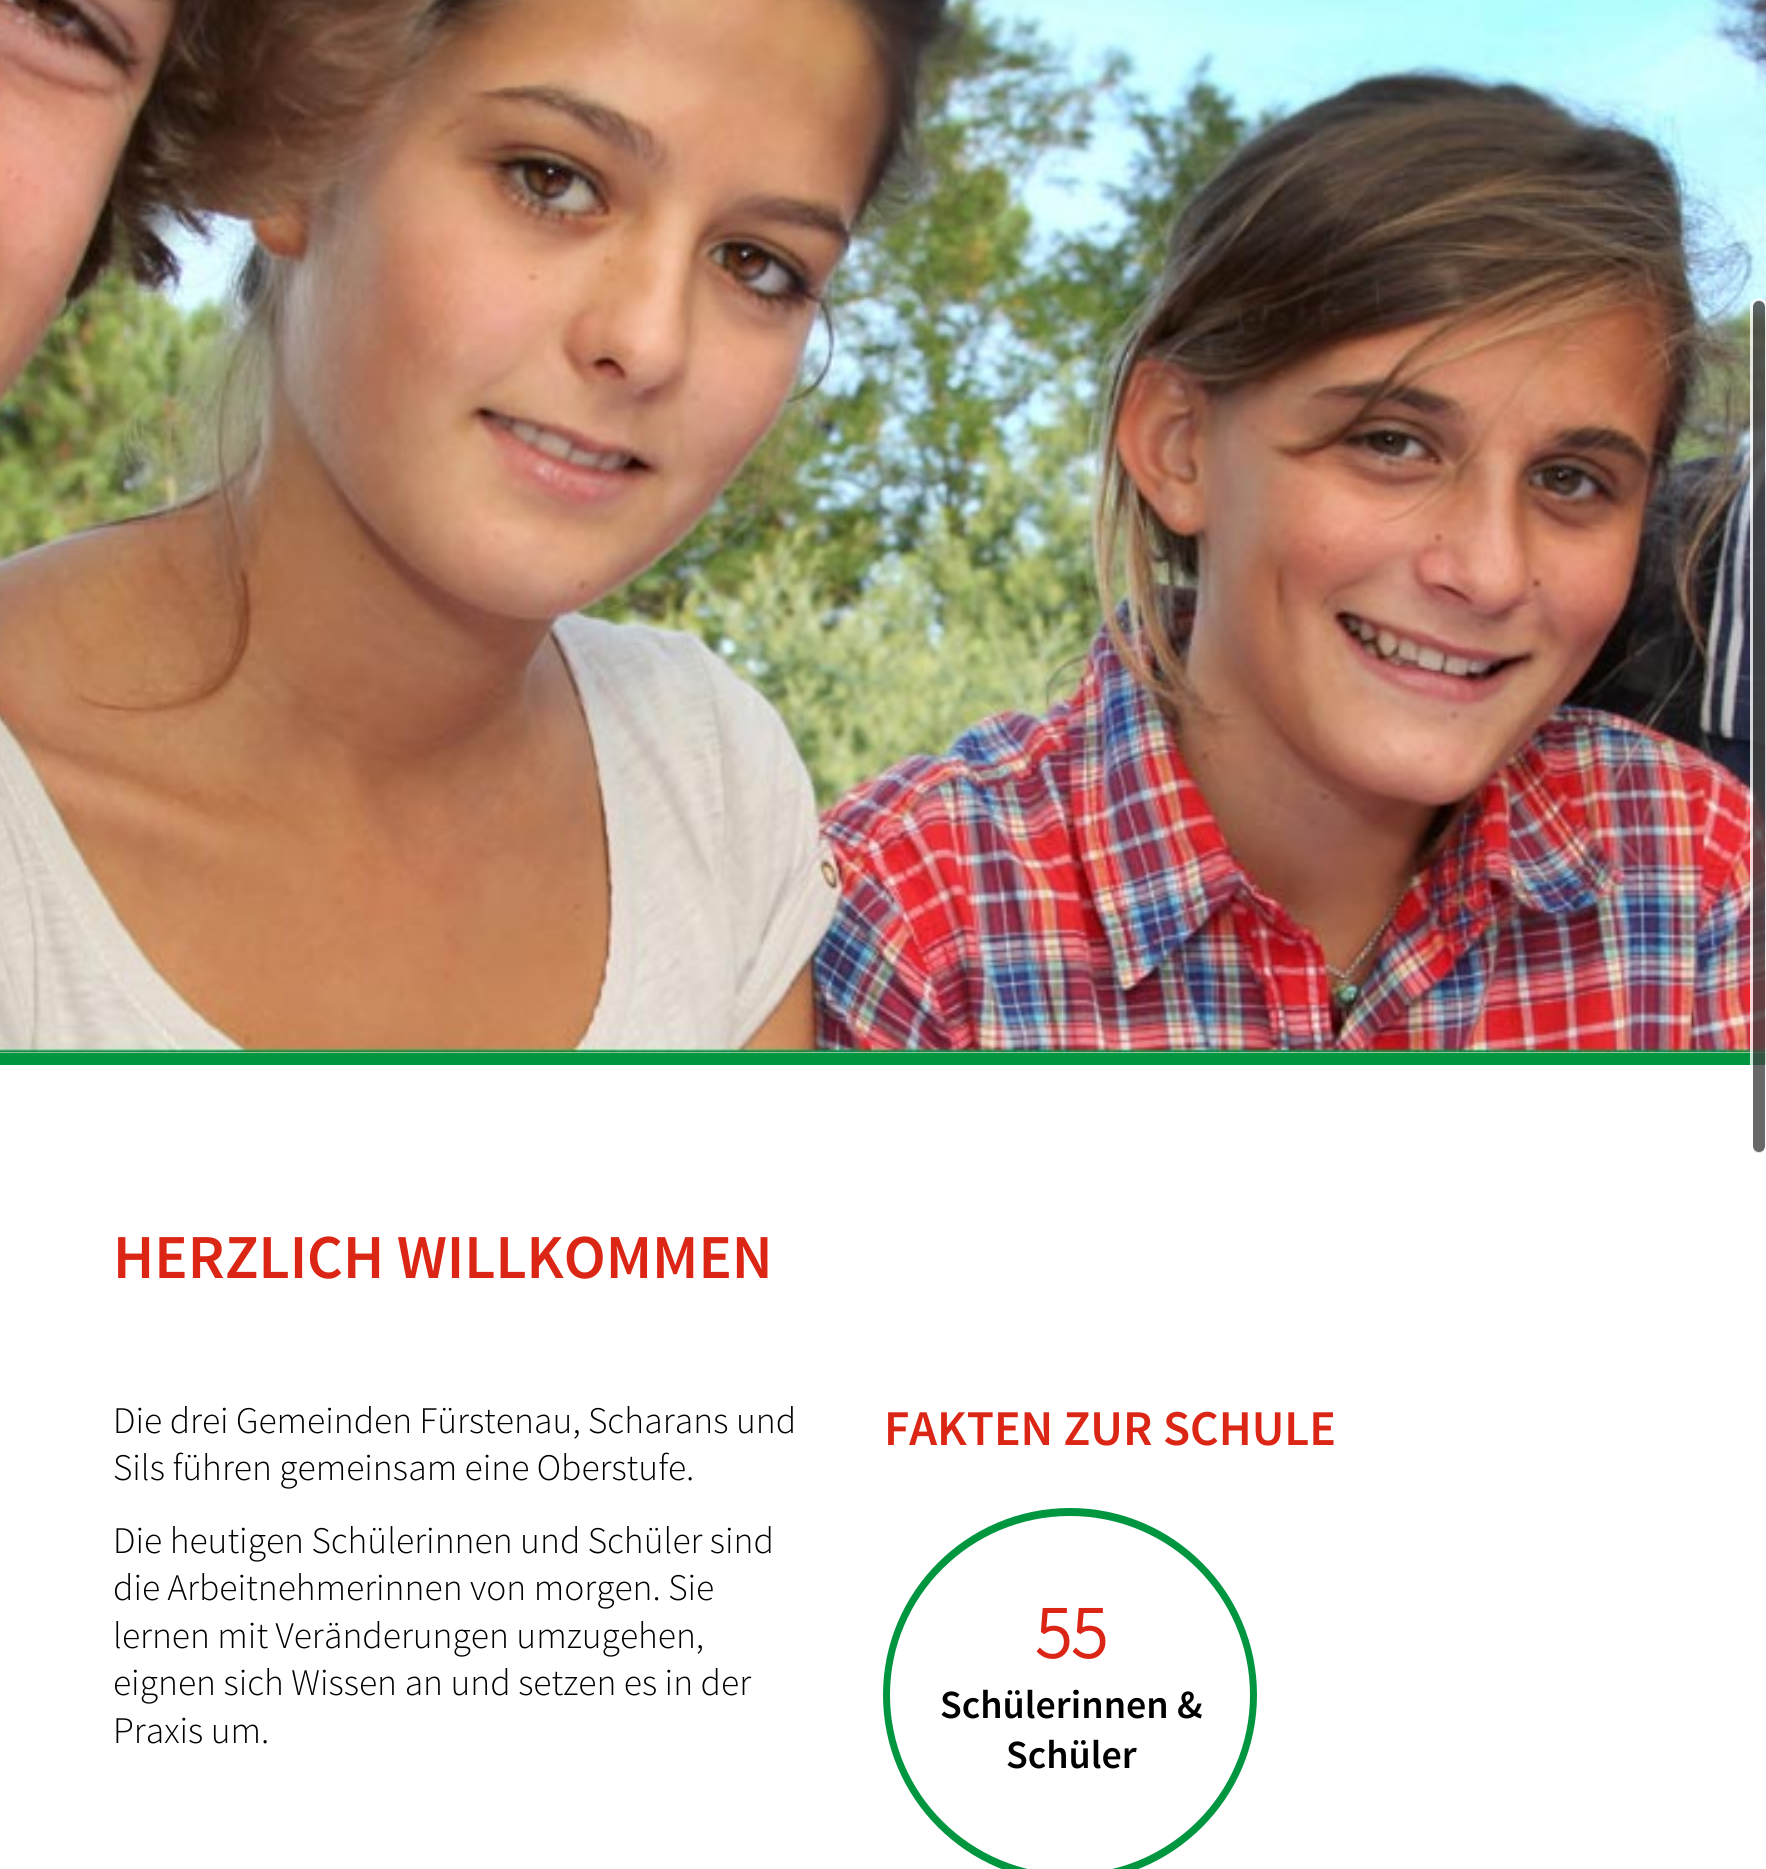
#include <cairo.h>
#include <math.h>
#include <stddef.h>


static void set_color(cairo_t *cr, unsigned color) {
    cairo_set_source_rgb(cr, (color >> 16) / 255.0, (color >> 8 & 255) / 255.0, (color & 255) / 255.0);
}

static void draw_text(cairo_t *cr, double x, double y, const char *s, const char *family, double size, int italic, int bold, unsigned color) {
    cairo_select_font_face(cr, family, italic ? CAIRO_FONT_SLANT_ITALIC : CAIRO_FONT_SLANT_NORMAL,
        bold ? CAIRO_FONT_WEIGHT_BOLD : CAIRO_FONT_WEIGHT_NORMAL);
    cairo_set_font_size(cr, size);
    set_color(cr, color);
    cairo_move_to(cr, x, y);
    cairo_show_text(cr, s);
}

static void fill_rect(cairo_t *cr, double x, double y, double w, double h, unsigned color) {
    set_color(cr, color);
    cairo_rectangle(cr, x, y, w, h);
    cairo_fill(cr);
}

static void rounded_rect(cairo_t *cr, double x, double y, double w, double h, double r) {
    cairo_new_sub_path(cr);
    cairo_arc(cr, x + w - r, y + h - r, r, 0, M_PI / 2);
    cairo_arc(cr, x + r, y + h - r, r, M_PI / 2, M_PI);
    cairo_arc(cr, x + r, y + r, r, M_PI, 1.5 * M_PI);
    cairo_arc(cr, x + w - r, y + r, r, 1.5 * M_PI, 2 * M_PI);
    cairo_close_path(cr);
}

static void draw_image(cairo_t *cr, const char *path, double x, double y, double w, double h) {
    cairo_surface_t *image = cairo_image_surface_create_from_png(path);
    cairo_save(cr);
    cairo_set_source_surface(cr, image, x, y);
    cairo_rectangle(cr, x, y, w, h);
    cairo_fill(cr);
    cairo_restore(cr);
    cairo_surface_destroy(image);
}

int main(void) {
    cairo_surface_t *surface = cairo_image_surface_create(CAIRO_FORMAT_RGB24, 1766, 1869);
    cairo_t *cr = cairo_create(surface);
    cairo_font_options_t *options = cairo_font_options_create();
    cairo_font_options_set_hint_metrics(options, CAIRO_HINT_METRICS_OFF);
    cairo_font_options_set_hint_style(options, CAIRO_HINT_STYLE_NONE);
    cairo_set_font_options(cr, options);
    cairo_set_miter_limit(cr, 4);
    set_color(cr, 0xFFFFFF);
    cairo_paint(cr);
    draw_image(cr, "assets/img1.png", 0, 0, 1766, 1053);
    fill_rect(cr, 0, 1053, 1766, 12, 0x009640);
    cairo_set_source_rgba(cr, 0.259, 0.259, 0.259, 0.8);
    rounded_rect(cr, 1753, 300, 12, 853, 6);
    cairo_fill(cr);
    rounded_rect(cr, 1751.5, 299.5, 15, 854, 7.5);
    cairo_set_source_rgba(cr, 1, 1, 1, 0.8);
    cairo_set_line_width(cr, 3);
    cairo_stroke(cr);
    draw_text(cr, 113, 1278, "HERZLICH WILLKOMMEN", "Source Sans Pro SemiBold", 62.5, 0, 0, 0xDC2615);
    draw_text(cr, 113, 1433, "Die drei Gemeinden Fürstenau, Scharans und", "Source Sans Pro Light", 37.5, 0, 0, 0x000000);
    draw_text(cr, 113, 1480, "Sils führen gemeinsam eine Oberstufe.", "Source Sans Pro Light", 37.5, 0, 0, 0x000000);
    draw_text(cr, 113, 1553, "Die heutigen Schülerinnen und Schüler sind", "Source Sans Pro Light", 37.5, 0, 0, 0x000000);
    draw_text(cr, 113, 1600, "die Arbeitnehmerinnen von morgen. Sie", "Source Sans Pro Light", 37.5, 0, 0, 0x000000);
    draw_text(cr, 113, 1648, "lernen mit Veränderungen umzugehen,", "Source Sans Pro Light", 37.5, 0, 0, 0x000000);
    draw_text(cr, 113, 1695, "eignen sich Wissen an und setzen es in der", "Source Sans Pro Light", 37.5, 0, 0, 0x000000);
    draw_text(cr, 113, 1743, "Praxis um.", "Source Sans Pro Light", 37.5, 0, 0, 0x000000);
    draw_text(cr, 884, 1445, "FAKTEN ZUR SCHULE", "Source Sans Pro SemiBold", 50, 0, 0, 0xDC2615);
    set_color(cr, 0x009640);
    cairo_new_path(cr);
    cairo_move_to(cr, 1070, 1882);
    cairo_curve_to(cr, 967, 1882, 883, 1798, 883, 1695);
    cairo_curve_to(cr, 883, 1592, 967, 1508, 1070, 1508);
    cairo_curve_to(cr, 1173, 1508, 1257, 1592, 1257, 1695);
    cairo_curve_to(cr, 1257, 1798, 1173, 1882, 1070, 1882);
    cairo_close_path(cr);
    cairo_move_to(cr, 1070, 1516);
    cairo_curve_to(cr, 971, 1516, 890, 1596, 890, 1695);
    cairo_curve_to(cr, 890, 1794, 971, 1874, 1070, 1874);
    cairo_curve_to(cr, 1169, 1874, 1250, 1794, 1250, 1695);
    cairo_curve_to(cr, 1250, 1596, 1169, 1516, 1070, 1516);
    cairo_close_path(cr);
    cairo_fill(cr);
    draw_text(cr, 1035, 1658, "55", "Source Sans Pro", 75, 0, 1, 0xDC2615);
    draw_text(cr, 940, 1718, "Schülerinnen &", "Source Sans Pro SemiBold", 40, 0, 0, 0x000000);
    draw_text(cr, 1006, 1768, "Schüler", "Source Sans Pro SemiBold", 40, 0, 0, 0x000000);
    cairo_surface_write_to_png(surface, "output.png");
    cairo_font_options_destroy(options);
    cairo_destroy(cr);
    cairo_surface_destroy(surface);
    return 0;
}
